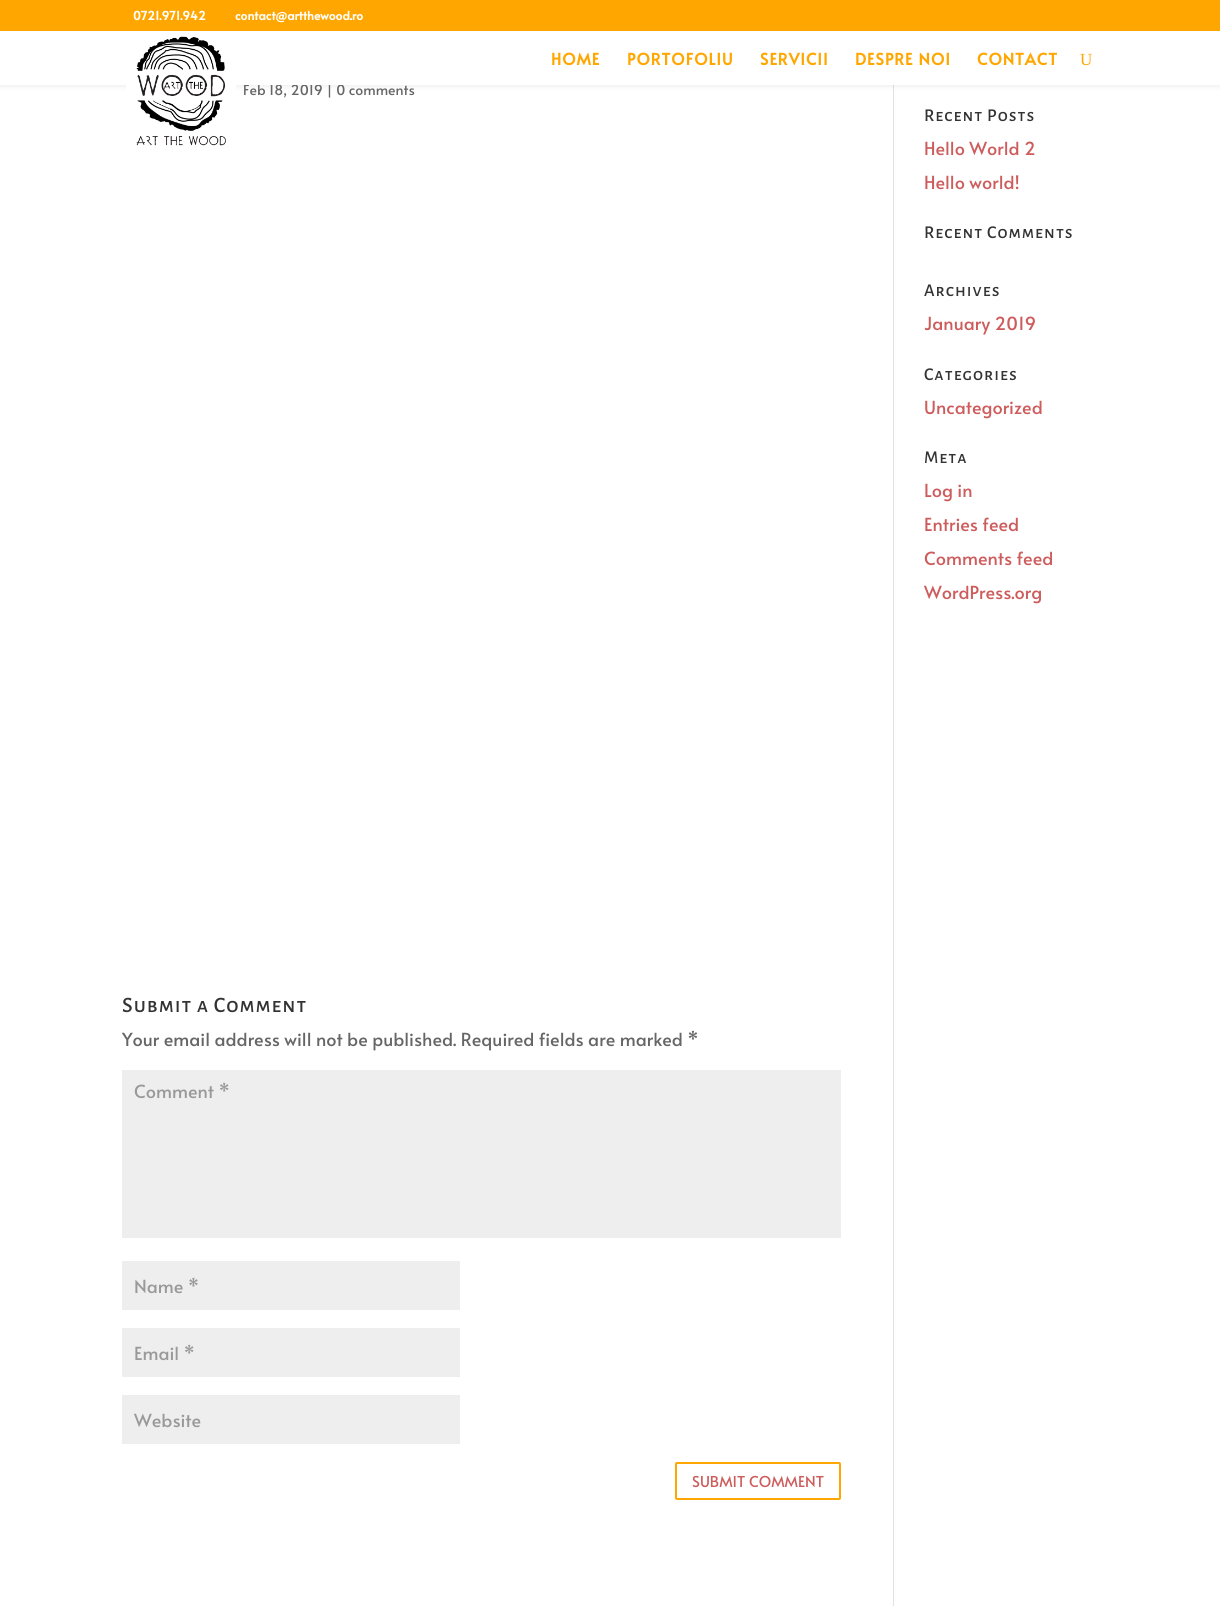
#include <cairo.h>
#include <math.h>
#include <stddef.h>


static void set_color(cairo_t *cr, unsigned color) {
    cairo_set_source_rgb(cr, (color >> 16) / 255.0, (color >> 8 & 255) / 255.0, (color & 255) / 255.0);
}

static void draw_text(cairo_t *cr, double x, double y, const char *s, const char *family, double size, int italic, int bold, unsigned color) {
    cairo_select_font_face(cr, family, italic ? CAIRO_FONT_SLANT_ITALIC : CAIRO_FONT_SLANT_NORMAL,
        bold ? CAIRO_FONT_WEIGHT_BOLD : CAIRO_FONT_WEIGHT_NORMAL);
    cairo_set_font_size(cr, size);
    set_color(cr, color);
    cairo_move_to(cr, x, y);
    cairo_show_text(cr, s);
}

static void draw_spaced(cairo_t *cr, double x, double y, const char *s, double letter, double word) {
    cairo_move_to(cr, x, y);
    while (*s) {
        char ch[5] = {0};
        int n = 0;
        do ch[n++] = *s++; while ((*s & 0xC0) == 0x80);
        cairo_show_text(cr, ch);
        cairo_rel_move_to(cr, letter + word * (*ch == ' '), 0);
    }
}

static void fill_rect(cairo_t *cr, double x, double y, double w, double h, unsigned color) {
    set_color(cr, color);
    cairo_rectangle(cr, x, y, w, h);
    cairo_fill(cr);
}

static void rounded_rect(cairo_t *cr, double x, double y, double w, double h, double r) {
    cairo_new_sub_path(cr);
    cairo_arc(cr, x + w - r, y + h - r, r, 0, M_PI / 2);
    cairo_arc(cr, x + r, y + h - r, r, M_PI / 2, M_PI);
    cairo_arc(cr, x + r, y + r, r, M_PI, 1.5 * M_PI);
    cairo_arc(cr, x + w - r, y + r, r, 1.5 * M_PI, 2 * M_PI);
    cairo_close_path(cr);
}

static void draw_shadow(cairo_t *cr, double x, double y, double w, double h, double r, double blur, double alpha) {
    cairo_push_group_with_content(cr, CAIRO_CONTENT_ALPHA);
    cairo_set_operator(cr, CAIRO_OPERATOR_SOURCE);
    for (int i = 15; i >= -15 && fmin(w, h) + blur * i / 3 > 0; i -= 2) {
        double e = blur * i / 6;
        cairo_set_source_rgba(cr, 0, 0, 0, alpha * erfc((i - 1) / 8.5) / 2);
        rounded_rect(cr, x - e, y - e, w + 2 * e, h + 2 * e, fmax(0, fmin(r + e + blur * .6, fmin(w, h) / 2 + e)));
        cairo_fill(cr);
    }
    cairo_pattern_t *soft = cairo_pop_group(cr);
    cairo_mask(cr, soft);
    cairo_pattern_destroy(soft);
}

static void draw_image(cairo_t *cr, const char *path, double x, double y, double w, double h) {
    cairo_surface_t *image = cairo_image_surface_create_from_png(path);
    cairo_save(cr);
    cairo_set_source_surface(cr, image, x, y);
    cairo_rectangle(cr, x, y, w, h);
    cairo_fill(cr);
    cairo_restore(cr);
    cairo_surface_destroy(image);
}

int main(void) {
    cairo_surface_t *surface = cairo_image_surface_create(CAIRO_FORMAT_RGB24, 1220, 1606);
    cairo_t *cr = cairo_create(surface);
    cairo_font_options_t *options = cairo_font_options_create();
    cairo_font_options_set_hint_metrics(options, CAIRO_HINT_METRICS_OFF);
    cairo_font_options_set_hint_style(options, CAIRO_HINT_STYLE_NONE);
    cairo_set_font_options(cr, options);
    cairo_set_miter_limit(cr, 4);
    set_color(cr, 0xFFFFFF);
    cairo_paint(cr);
    fill_rect(cr, 893, 85, 1, 1521, 0xE2E2E2);
    set_color(cr, 0x000000);
    draw_shadow(cr, 0, 31, 1220, 54, 0, 3.5, 0.1);
    fill_rect(cr, 0, 0, 1220, 31, 0xFFA700);
    draw_text(cr, 133, 20, "0721.971.942", "Alata", 12, 0, 1, 0xFFFFFF);
    draw_text(cr, 235, 20, "contact@artthewood.ro", "Alata", 12, 0, 1, 0xFFFFFF);
    draw_text(cr, 243, 95, "Feb 18, 2019 | 0 comments", "Alata", 14, 0, 0, 0x666666);
    fill_rect(cr, 0, 31, 1220, 54, 0xFFFFFF);
    cairo_new_path(cr);
    cairo_move_to(cr, 137, 31);
    cairo_line_to(cr, 225, 31);
    cairo_curve_to(cr, 231, 31, 236, 36, 236, 43);
    cairo_line_to(cr, 236, 139);
    cairo_curve_to(cr, 236, 146, 231, 151, 225, 151);
    cairo_line_to(cr, 137, 151);
    cairo_curve_to(cr, 131, 151, 126, 146, 126, 139);
    cairo_line_to(cr, 126, 43);
    cairo_curve_to(cr, 126, 36, 131, 31, 137, 31);
    cairo_close_path(cr);
    cairo_fill(cr);
    draw_image(cr, "assets/img1.png", 136, 36, 90, 110);
    cairo_select_font_face(cr, "Alata", CAIRO_FONT_SLANT_NORMAL, CAIRO_FONT_WEIGHT_BOLD);
    cairo_set_font_size(cr, 16);
    set_color(cr, 0xFFA700);
    draw_spaced(cr, 551, 65, "HOME", 1, 0);
    draw_spaced(cr, 627, 65, "PORTOFOLIU", 1, 0);
    draw_spaced(cr, 760, 65, "SERVICII", 1, 0);
    draw_spaced(cr, 855, 65, "DESPRE NOI", 1, 0);
    draw_spaced(cr, 977, 65, "CONTACT", 1, 0);
    draw_text(cr, 1080, 65, "U", "Liberation Serif", 17, 0, 0, 0xFFA700);
    cairo_select_font_face(cr, "Alegreya Sans SC Medium", CAIRO_FONT_SLANT_NORMAL, CAIRO_FONT_WEIGHT_NORMAL);
    cairo_set_font_size(cr, 22);
    set_color(cr, 0x333333);
    draw_spaced(cr, 122, 1012, "Submit a Comment", 1, 0);
    draw_text(cr, 122, 1046, "Your email address will not be published. Required fields are marked *", "Alata", 18, 0, 0, 0x666666);
    fill_rect(cr, 122, 1070, 719, 168, 0xEEEEEE);
    draw_text(cr, 134, 1098, "Comment *", "Alata", 18, 0, 0, 0x999999);
    fill_rect(cr, 122, 1261, 338, 49, 0xEEEEEE);
    draw_text(cr, 134, 1293, "Name *", "Alata", 18, 0, 0, 0x999999);
    fill_rect(cr, 122, 1328, 338, 49, 0xEEEEEE);
    draw_text(cr, 134, 1360, "Email *", "Alata", 18, 0, 0, 0x999999);
    fill_rect(cr, 122, 1395, 338, 49, 0xEEEEEE);
    draw_text(cr, 134, 1427, "Website", "Alata", 18, 0, 0, 0x999999);
    rounded_rect(cr, 676, 1463, 164, 36, 1);
    set_color(cr, 0xFFA700);
    cairo_stroke(cr);
    draw_text(cr, 692, 1487, "SUBMIT COMMENT", "Alata", 15, 0, 0, 0xCD5C5C);
    cairo_select_font_face(cr, "Alegreya Sans SC Medium", CAIRO_FONT_SLANT_NORMAL, CAIRO_FONT_WEIGHT_NORMAL);
    cairo_set_font_size(cr, 18);
    set_color(cr, 0x333333);
    draw_spaced(cr, 924, 121, "Recent Posts", 1, 0);
    draw_text(cr, 924, 155, "Hello World 2", "Alata", 18, 0, 0, 0xCD5C5C);
    draw_text(cr, 924, 189, "Hello world!", "Alata", 18, 0, 0, 0xCD5C5C);
    cairo_select_font_face(cr, "Alegreya Sans SC Medium", CAIRO_FONT_SLANT_NORMAL, CAIRO_FONT_WEIGHT_NORMAL);
    set_color(cr, 0x333333);
    draw_spaced(cr, 924, 238, "Recent Comments", 1, 0);
    draw_spaced(cr, 924, 296, "Archives", 1, 0);
    draw_text(cr, 924, 330, "January 2019", "Alata", 18, 0, 0, 0xCD5C5C);
    cairo_select_font_face(cr, "Alegreya Sans SC Medium", CAIRO_FONT_SLANT_NORMAL, CAIRO_FONT_WEIGHT_NORMAL);
    set_color(cr, 0x333333);
    draw_spaced(cr, 924, 380, "Categories", 1, 0);
    draw_text(cr, 924, 414, "Uncategorized", "Alata", 18, 0, 0, 0xCD5C5C);
    cairo_select_font_face(cr, "Alegreya Sans SC Medium", CAIRO_FONT_SLANT_NORMAL, CAIRO_FONT_WEIGHT_NORMAL);
    set_color(cr, 0x333333);
    draw_spaced(cr, 924, 463, "Meta", 1, 0);
    draw_text(cr, 924, 497, "Log in", "Alata", 18, 0, 0, 0xCD5C5C);
    draw_text(cr, 924, 531, "Entries feed", "Alata", 18, 0, 0, 0xCD5C5C);
    draw_text(cr, 924, 565, "Comments feed", "Alata", 18, 0, 0, 0xCD5C5C);
    draw_text(cr, 924, 599, "WordPress.org", "Alata", 18, 0, 0, 0xCD5C5C);
    cairo_surface_write_to_png(surface, "output.png");
    cairo_font_options_destroy(options);
    cairo_destroy(cr);
    cairo_surface_destroy(surface);
    return 0;
}
